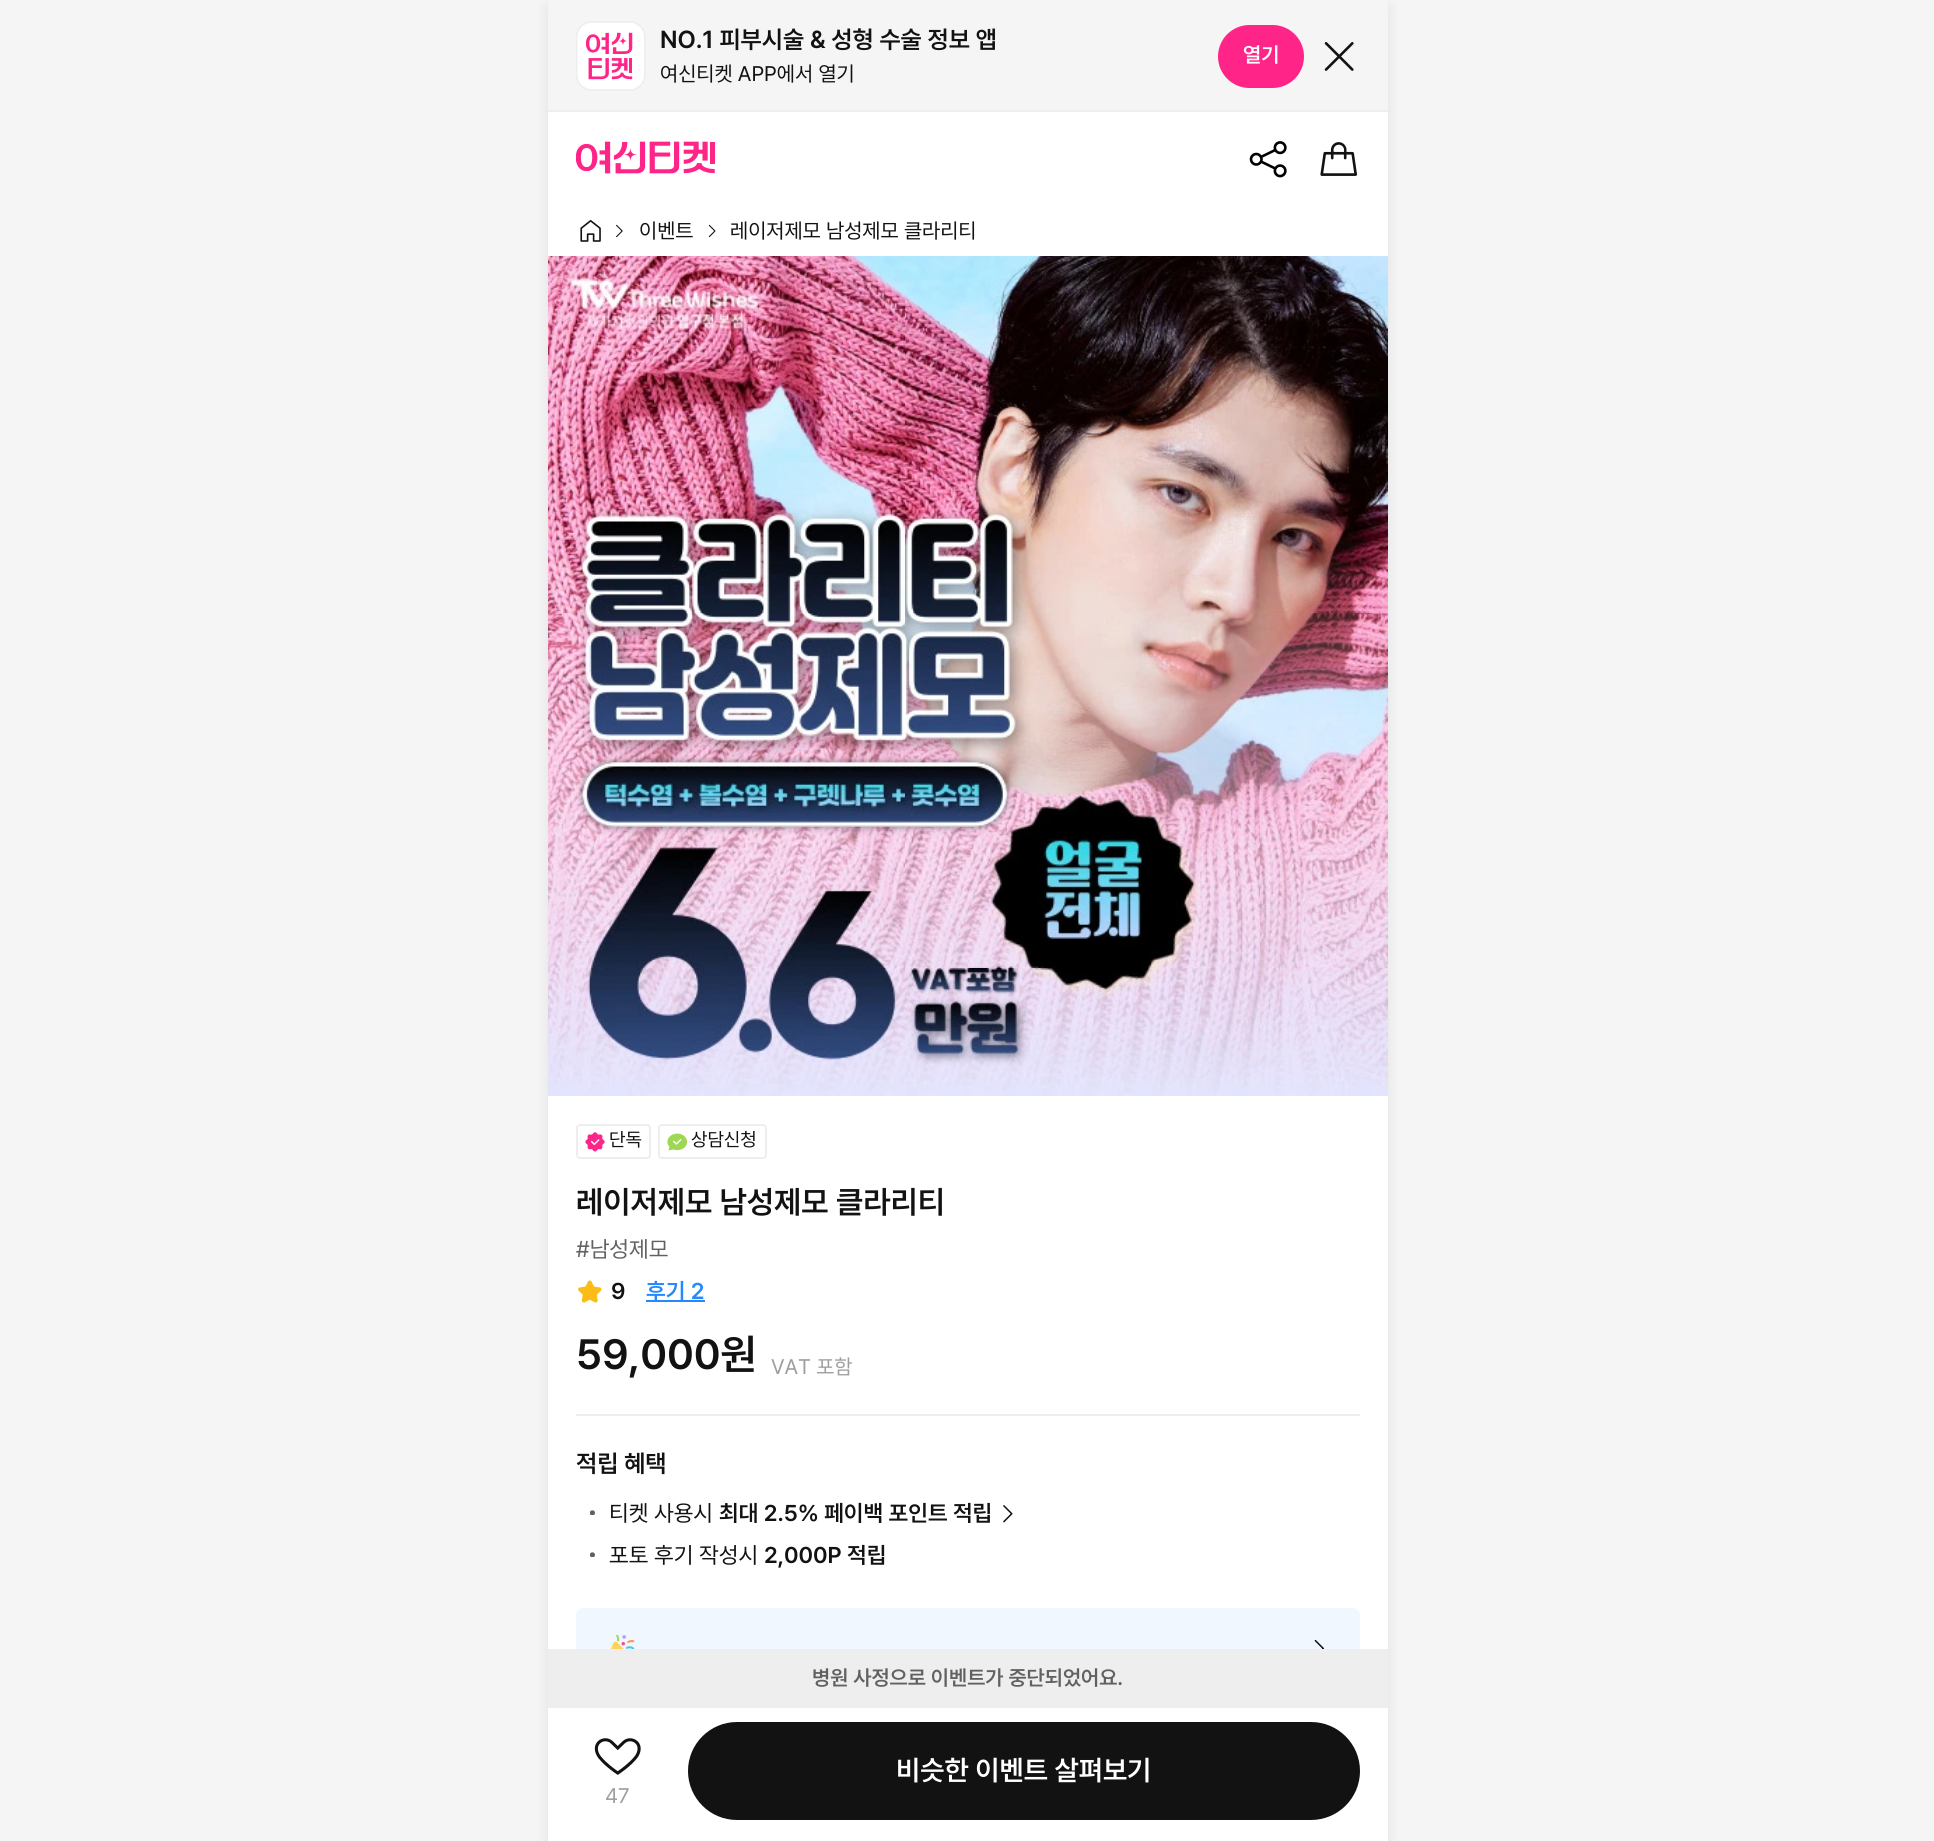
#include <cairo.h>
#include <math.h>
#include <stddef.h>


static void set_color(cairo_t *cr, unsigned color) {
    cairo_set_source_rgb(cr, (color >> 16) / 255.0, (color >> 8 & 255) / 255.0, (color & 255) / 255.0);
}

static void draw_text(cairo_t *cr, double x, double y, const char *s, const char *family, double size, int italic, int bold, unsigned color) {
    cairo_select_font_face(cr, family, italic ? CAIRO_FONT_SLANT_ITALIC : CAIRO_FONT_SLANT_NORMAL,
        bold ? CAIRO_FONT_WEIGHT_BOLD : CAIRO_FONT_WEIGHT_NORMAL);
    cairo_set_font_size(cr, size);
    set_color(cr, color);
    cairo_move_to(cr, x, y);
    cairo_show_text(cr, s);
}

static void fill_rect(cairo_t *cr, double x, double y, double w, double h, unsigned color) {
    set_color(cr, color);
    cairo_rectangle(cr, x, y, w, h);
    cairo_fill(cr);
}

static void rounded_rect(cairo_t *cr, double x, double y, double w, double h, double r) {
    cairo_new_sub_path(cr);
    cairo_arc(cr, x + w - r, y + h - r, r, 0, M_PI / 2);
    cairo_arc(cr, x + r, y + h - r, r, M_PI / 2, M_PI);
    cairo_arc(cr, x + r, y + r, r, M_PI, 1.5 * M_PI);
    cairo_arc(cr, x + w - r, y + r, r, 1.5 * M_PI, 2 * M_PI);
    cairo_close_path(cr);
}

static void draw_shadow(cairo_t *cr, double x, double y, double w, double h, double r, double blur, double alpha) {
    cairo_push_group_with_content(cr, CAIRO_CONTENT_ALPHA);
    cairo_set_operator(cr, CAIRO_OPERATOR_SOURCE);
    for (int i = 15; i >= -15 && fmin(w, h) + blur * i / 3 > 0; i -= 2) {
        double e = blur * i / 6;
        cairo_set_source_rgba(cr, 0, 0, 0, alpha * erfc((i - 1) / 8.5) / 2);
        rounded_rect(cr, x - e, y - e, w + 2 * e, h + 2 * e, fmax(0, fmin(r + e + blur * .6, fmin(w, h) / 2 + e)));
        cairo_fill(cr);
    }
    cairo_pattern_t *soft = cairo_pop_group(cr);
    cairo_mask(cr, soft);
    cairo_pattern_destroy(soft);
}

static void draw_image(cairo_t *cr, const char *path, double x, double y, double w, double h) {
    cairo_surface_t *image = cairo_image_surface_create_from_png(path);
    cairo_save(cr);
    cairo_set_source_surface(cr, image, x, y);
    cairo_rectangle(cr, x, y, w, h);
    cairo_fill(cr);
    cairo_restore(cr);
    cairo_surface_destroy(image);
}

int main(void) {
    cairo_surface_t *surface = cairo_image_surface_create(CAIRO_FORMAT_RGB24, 1934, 1841);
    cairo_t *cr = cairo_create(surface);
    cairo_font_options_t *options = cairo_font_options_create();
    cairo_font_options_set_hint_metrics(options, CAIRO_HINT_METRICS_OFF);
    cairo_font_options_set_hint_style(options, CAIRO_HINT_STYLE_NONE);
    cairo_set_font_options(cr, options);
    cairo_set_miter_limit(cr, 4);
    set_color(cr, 0xF5F5F5);
    cairo_paint(cr);
    set_color(cr, 0x000000);
    draw_shadow(cr, 548, 7, 840, 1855, 0, 7, 0.08);
    fill_rect(cr, 548, 112, 840, 1537, 0xFFFFFF);
    fill_rect(cr, 548, 0, 840, 110, 0xF5F5F5);
    fill_rect(cr, 548, 110, 840, 2, 0xEEEEEE);
    draw_image(cr, "assets/img1.png", 576, 21, 70, 70);
    draw_text(cr, 660, 48, "NO.1 피부시술 & 성형 수술 정보 앱", "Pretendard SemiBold", 24.5, 0, 0, 0x121212);
    draw_text(cr, 660, 81, "여신티켓 APP에서 열기", "Pretendard", 21, 0, 0, 0x121212);
    set_color(cr, 0xFF2488);
    rounded_rect(cr, 1218, 25, 86, 63, 31.5);
    cairo_fill(cr);
    draw_text(cr, 1243, 62, "열기", "Pretendard SemiBold", 21, 0, 0, 0xFFFFFF);
    draw_image(cr, "assets/img2.png", 1324, 42, 30, 29);
    draw_image(cr, "assets/img3.png", 576, 141, 139, 33);
    draw_image(cr, "assets/img4.png", 1249, 141, 38, 37);
    draw_image(cr, "assets/img5.png", 1320, 142, 38, 34);
    draw_image(cr, "assets/img6.png", 580, 220, 21, 22);
    draw_image(cr, "assets/img7.png", 616, 224, 7, 14);
    draw_text(cr, 639, 238, "이벤트", "Pretendard", 21, 0, 0, 0x121212);
    draw_image(cr, "assets/img8.png", 708, 224, 8, 14);
    draw_text(cr, 730, 238, "레이저제모 남성제모 클라리티", "Pretendard", 21, 0, 0, 0x121212);
    draw_image(cr, "assets/img9.png", 548, 256, 840, 840);
    rounded_rect(cr, 577, 1125, 73, 33, 3);
    set_color(cr, 0xEEEEEE);
    cairo_stroke(cr);
    draw_image(cr, "assets/img10.png", 585, 1132, 20, 20);
    draw_text(cr, 609, 1146, "단독", "Pretendard", 19, 0, 0, 0x121212);
    rounded_rect(cr, 659, 1125, 107, 33, 3);
    set_color(cr, 0xEEEEEE);
    cairo_stroke(cr);
    draw_image(cr, "assets/img11.png", 667, 1133, 21, 18);
    draw_text(cr, 691, 1146, "상담신청", "Pretendard", 19, 0, 0, 0x121212);
    draw_text(cr, 576, 1213, "레이저제모 남성제모 클라리티", "Pretendard SemiBold", 31.5, 0, 0, 0x121212);
    draw_text(cr, 576, 1257, "#남성제모", "Pretendard", 22.75, 0, 0, 0x616161);
    draw_image(cr, "assets/img12.png", 578, 1280, 24, 23);
    draw_text(cr, 611, 1299, "9", "Pretendard SemiBold", 22.75, 0, 0, 0x121212);
    fill_rect(cr, 646, 1300, 59, 2, 0x2489FF);
    draw_text(cr, 646, 1299, "후기 2", "Pretendard SemiBold", 22.75, 0, 0, 0x2489FF);
    draw_text(cr, 576, 1369, "59,000원", "Pretendard SemiBold", 42, 0, 0, 0x121212);
    draw_text(cr, 771, 1374, "VAT 포함", "Pretendard", 21, 0, 0, 0x9E9E9E);
    fill_rect(cr, 576, 1414, 784, 2, 0xEEEEEE);
    draw_text(cr, 576, 1472, "적립 혜택", "Pretendard SemiBold", 24.5, 0, 0, 0x121212);
    cairo_save(cr);
    cairo_rectangle(cr, 590, 1510, 5, 5);
    cairo_clip(cr);
    set_color(cr, 0x616161);
    cairo_arc(cr, 592.4, 1512.9, 2.6, 0, 2 * M_PI);
    cairo_fill(cr);
    cairo_restore(cr);
    draw_text(cr, 609, 1521, "티켓 사용시", "Pretendard", 22.75, 0, 0, 0x121212);
    draw_text(cr, 719, 1521, "최대 2.5% 페이백 포인트 적립", "Pretendard SemiBold", 22.75, 0, 0, 0x121212);
    draw_image(cr, "assets/img13.png", 1003, 1505, 10, 18);
    cairo_save(cr);
    cairo_rectangle(cr, 590, 1552, 5, 5);
    cairo_clip(cr);
    set_color(cr, 0x616161);
    cairo_arc(cr, 592.4, 1554.9, 2.6, 0, 2 * M_PI);
    cairo_fill(cr);
    cairo_restore(cr);
    draw_text(cr, 609, 1563, "포토 후기 작성시", "Pretendard", 22.75, 0, 0, 0x121212);
    draw_text(cr, 764, 1563, "2,000P 적립", "Pretendard SemiBold", 22.75, 0, 0, 0x121212);
    set_color(cr, 0xF0F7FF);
    rounded_rect(cr, 576, 1608, 784, 81, 7);
    cairo_fill(cr);
    draw_image(cr, "assets/img14.png", 611, 1634, 24, 15);
    draw_image(cr, "assets/img15.png", 1314, 1639, 10, 10);
    fill_rect(cr, 548, 1649, 840, 59, 0xEEEEEE);
    draw_text(cr, 812, 1685, "병원 사정으로 이벤트가 중단되었어요.", "Pretendard SemiBold", 21, 0, 0, 0x616161);
    fill_rect(cr, 548, 1708, 840, 133, 0xFFFFFF);
    set_color(cr, 0x121212);
    rounded_rect(cr, 688, 1722, 672, 98, 49);
    cairo_fill(cr);
    draw_text(cr, 896, 1780, "비슷한 이벤트 살펴보기", "Pretendard SemiBold", 28, 0, 0, 0xFFFFFF);
    draw_image(cr, "assets/img16.png", 594, 1738, 47, 37);
    draw_text(cr, 605, 1803, "47", "Pretendard", 21, 0, 0, 0x9E9E9E);
    cairo_surface_write_to_png(surface, "output.png");
    cairo_font_options_destroy(options);
    cairo_destroy(cr);
    cairo_surface_destroy(surface);
    return 0;
}
